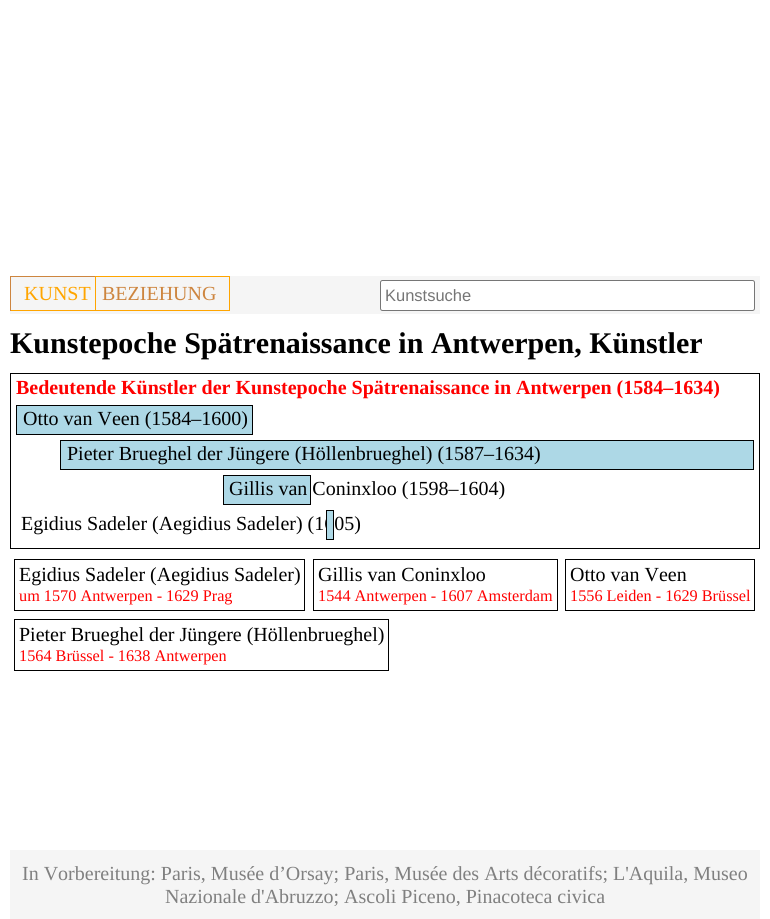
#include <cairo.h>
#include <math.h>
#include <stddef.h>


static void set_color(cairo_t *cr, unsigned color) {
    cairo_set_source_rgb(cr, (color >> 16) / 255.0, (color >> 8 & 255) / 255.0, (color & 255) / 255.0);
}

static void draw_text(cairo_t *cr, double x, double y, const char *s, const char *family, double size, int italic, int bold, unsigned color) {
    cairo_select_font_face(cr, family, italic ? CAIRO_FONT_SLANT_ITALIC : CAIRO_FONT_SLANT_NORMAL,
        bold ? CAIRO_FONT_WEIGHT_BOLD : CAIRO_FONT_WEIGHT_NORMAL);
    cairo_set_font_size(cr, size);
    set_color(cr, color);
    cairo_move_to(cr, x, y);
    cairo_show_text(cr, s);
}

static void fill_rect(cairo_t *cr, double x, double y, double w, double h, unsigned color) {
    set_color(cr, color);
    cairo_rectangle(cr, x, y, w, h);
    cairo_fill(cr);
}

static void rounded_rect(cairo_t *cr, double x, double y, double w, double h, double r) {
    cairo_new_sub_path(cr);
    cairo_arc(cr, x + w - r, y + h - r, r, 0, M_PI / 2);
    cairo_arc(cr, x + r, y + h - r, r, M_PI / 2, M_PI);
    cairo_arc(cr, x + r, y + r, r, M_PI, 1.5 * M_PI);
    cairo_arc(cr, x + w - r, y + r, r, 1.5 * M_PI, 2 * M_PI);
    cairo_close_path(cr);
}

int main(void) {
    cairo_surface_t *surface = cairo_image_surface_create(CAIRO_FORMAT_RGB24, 770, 919);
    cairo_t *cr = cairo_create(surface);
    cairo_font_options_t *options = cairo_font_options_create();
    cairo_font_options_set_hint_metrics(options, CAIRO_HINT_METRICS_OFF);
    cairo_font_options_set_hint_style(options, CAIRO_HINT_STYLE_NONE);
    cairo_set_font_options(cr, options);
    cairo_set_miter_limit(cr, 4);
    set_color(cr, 0xFFFFFF);
    cairo_paint(cr);
    fill_rect(cr, 10, 276, 750, 38, 0xF5F5F5);
    fill_rect(cr, 10, 276, 86, 1, 0xCD853F);
    fill_rect(cr, 95, 276, 1, 35, 0xFFA500);
    fill_rect(cr, 10, 310, 86, 1, 0xFFA500);
    fill_rect(cr, 10, 276, 1, 35, 0xCD853F);
    draw_text(cr, 24, 300, "KUNST", "Liberation Serif", 20, 0, 0, 0xFFA500);
    fill_rect(cr, 96, 276, 134, 1, 0xFFA500);
    fill_rect(cr, 229, 276, 1, 35, 0xFFA500);
    fill_rect(cr, 96, 310, 134, 1, 0xFFA500);
    draw_text(cr, 102, 300, "BEZIEHUNG", "Liberation Serif", 20, 0, 0, 0xCD853F);
    set_color(cr, 0xFFFFFF);
    rounded_rect(cr, 380.5, 280.5, 374, 30, 2);
    cairo_fill_preserve(cr);
    set_color(cr, 0x767676);
    cairo_set_line_width(cr, 1);
    cairo_stroke(cr);
    draw_text(cr, 385, 301, "Kunstsuche", "Liberation Sans", 16.5, 0, 0, 0x757575);
    draw_text(cr, 10, 353, "Kunstepoche Spätrenaissance in Antwerpen, Künstler", "Liberation Serif", 30, 0, 1, 0x000000);
    cairo_rectangle(cr, 10.5, 373.5, 749, 175);
    cairo_stroke(cr);
    draw_text(cr, 16, 394, "Bedeutende Künstler der Kunstepoche Spätrenaissance in Antwerpen (1584–1634)", "Liberation Serif", 20, 0, 1, 0xFF0000);
    set_color(cr, 0xADD8E6);
    cairo_rectangle(cr, 16.5, 405.5, 236, 29);
    cairo_fill_preserve(cr);
    set_color(cr, 0x000000);
    cairo_stroke(cr);
    draw_text(cr, 23, 425, "Otto van Veen (1584–1600)", "Liberation Serif", 20, 0, 0, 0x000000);
    set_color(cr, 0xADD8E6);
    cairo_rectangle(cr, 60.5, 440.5, 693, 29);
    cairo_fill_preserve(cr);
    set_color(cr, 0x000000);
    cairo_stroke(cr);
    draw_text(cr, 67, 460, "Pieter Brueghel der Jüngere (Höllenbrueghel) (1587–1634)", "Liberation Serif", 20, 0, 0, 0x000000);
    set_color(cr, 0xADD8E6);
    cairo_rectangle(cr, 223.5, 475.5, 87, 29);
    cairo_fill_preserve(cr);
    set_color(cr, 0x000000);
    cairo_stroke(cr);
    draw_text(cr, 229, 495, "Gillis van Coninxloo (1598–1604)", "Liberation Serif", 20, 0, 0, 0x000000);
    draw_text(cr, 21, 530, "Egidius Sadeler (Aegidius Sadeler) (1605)", "Liberation Serif", 20, 0, 0, 0x000000);
    set_color(cr, 0xADD8E6);
    cairo_rectangle(cr, 326.5, 510.5, 7, 29);
    cairo_fill_preserve(cr);
    set_color(cr, 0x000000);
    cairo_stroke(cr);
    cairo_rectangle(cr, 14.5, 559.5, 290, 51);
    cairo_stroke(cr);
    draw_text(cr, 19, 581, "Egidius Sadeler (Aegidius Sadeler)", "Liberation Serif", 20, 0, 0, 0x000000);
    draw_text(cr, 19, 601, "um 1570 Antwerpen - 1629 Prag", "Liberation Serif", 16.25, 0, 0, 0xFF0000);
    cairo_rectangle(cr, 313.5, 559.5, 244, 51);
    set_color(cr, 0x000000);
    cairo_stroke(cr);
    draw_text(cr, 318, 581, "Gillis van Coninxloo", "Liberation Serif", 20, 0, 0, 0x000000);
    draw_text(cr, 318, 601, "1544 Antwerpen - 1607 Amsterdam", "Liberation Serif", 16.25, 0, 0, 0xFF0000);
    cairo_rectangle(cr, 565.5, 559.5, 189, 51);
    set_color(cr, 0x000000);
    cairo_stroke(cr);
    draw_text(cr, 570, 581, "Otto van Veen", "Liberation Serif", 20, 0, 0, 0x000000);
    draw_text(cr, 570, 601, "1556 Leiden - 1629 Brüssel", "Liberation Serif", 16.25, 0, 0, 0xFF0000);
    cairo_rectangle(cr, 14.5, 619.5, 374, 51);
    set_color(cr, 0x000000);
    cairo_stroke(cr);
    draw_text(cr, 19, 641, "Pieter Brueghel der Jüngere (Höllenbrueghel)", "Liberation Serif", 20, 0, 0, 0x000000);
    draw_text(cr, 19, 661, "1564 Brüssel - 1638 Antwerpen", "Liberation Serif", 16.25, 0, 0, 0xFF0000);
    fill_rect(cr, 10, 850, 750, 69, 0xF5F5F5);
    draw_text(cr, 22, 880, "In Vorbereitung: Paris, Musée d’Orsay; Paris, Musée des Arts décoratifs; L'Aquila, Museo", "Liberation Serif", 20, 0, 0, 0x808080);
    draw_text(cr, 165, 903, "Nazionale d'Abruzzo; Ascoli Piceno, Pinacoteca civica", "Liberation Serif", 20, 0, 0, 0x808080);
    cairo_surface_write_to_png(surface, "output.png");
    cairo_font_options_destroy(options);
    cairo_destroy(cr);
    cairo_surface_destroy(surface);
    return 0;
}
